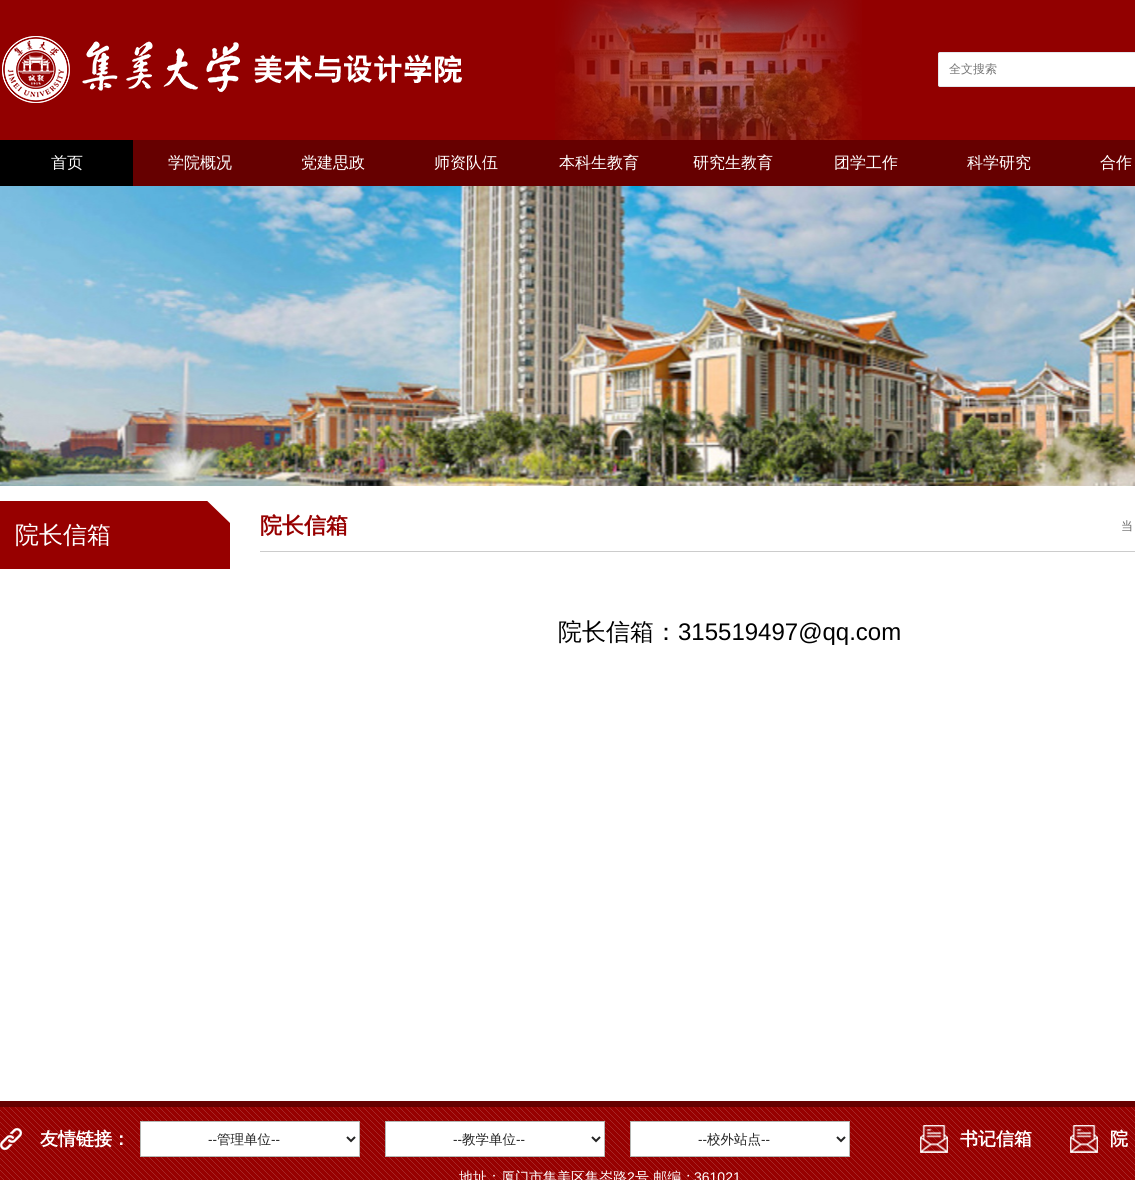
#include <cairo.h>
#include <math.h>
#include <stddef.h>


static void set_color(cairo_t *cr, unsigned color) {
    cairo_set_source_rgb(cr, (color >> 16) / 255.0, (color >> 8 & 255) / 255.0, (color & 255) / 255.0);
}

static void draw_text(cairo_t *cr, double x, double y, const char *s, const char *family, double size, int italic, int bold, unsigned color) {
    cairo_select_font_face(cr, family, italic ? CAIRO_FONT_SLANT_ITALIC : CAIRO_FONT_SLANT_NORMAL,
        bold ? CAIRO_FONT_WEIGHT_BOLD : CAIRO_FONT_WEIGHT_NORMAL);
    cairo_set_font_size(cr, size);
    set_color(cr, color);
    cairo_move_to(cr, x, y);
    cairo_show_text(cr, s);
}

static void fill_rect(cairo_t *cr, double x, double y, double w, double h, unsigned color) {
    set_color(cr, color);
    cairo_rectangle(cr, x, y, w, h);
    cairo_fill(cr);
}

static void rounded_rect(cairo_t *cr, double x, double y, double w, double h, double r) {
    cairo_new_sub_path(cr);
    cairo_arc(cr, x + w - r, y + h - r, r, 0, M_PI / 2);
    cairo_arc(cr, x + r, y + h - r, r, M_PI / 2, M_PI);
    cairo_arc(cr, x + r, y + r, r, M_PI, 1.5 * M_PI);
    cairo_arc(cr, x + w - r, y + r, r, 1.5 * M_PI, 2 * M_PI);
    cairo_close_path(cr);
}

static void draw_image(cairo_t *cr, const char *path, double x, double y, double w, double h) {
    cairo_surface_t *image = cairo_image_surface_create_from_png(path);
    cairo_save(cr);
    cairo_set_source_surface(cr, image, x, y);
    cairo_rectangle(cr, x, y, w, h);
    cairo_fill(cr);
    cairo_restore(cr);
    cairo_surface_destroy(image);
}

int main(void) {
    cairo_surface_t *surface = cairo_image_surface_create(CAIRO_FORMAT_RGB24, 1135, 1180);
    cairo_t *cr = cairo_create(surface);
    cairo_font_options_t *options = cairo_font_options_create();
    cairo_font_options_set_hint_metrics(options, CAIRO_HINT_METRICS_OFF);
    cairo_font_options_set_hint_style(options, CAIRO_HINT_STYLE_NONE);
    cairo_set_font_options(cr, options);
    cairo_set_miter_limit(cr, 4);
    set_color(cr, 0xFFFFFF);
    cairo_paint(cr);
    fill_rect(cr, 0, 0, 1135, 140, 0x920000);
    draw_image(cr, "assets/img1.png", 555, 0, 307, 140);
    draw_image(cr, "assets/img2.png", 2, 36, 460, 67);
    set_color(cr, 0xFFFFFF);
    rounded_rect(cr, 938.5, 52.5, 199, 34, 1.5);
    cairo_fill_preserve(cr);
    set_color(cr, 0xE4E7ED);
    cairo_set_line_width(cr, 1);
    cairo_stroke(cr);
    draw_text(cr, 949, 73, "全文搜索", "WenQuanYi Zen Hei Medium", 12, 0, 0, 0x757575);
    fill_rect(cr, 133, 140, 1002, 46, 0x660000);
    fill_rect(cr, 0, 140, 133, 46, 0x000000);
    draw_text(cr, 51, 168, "首页", "WenQuanYi Zen Hei Medium", 16, 0, 0, 0xFFFFFF);
    draw_text(cr, 168, 168, "学院概况", "WenQuanYi Zen Hei Medium", 16, 0, 0, 0xFFFFFF);
    draw_text(cr, 301, 168, "党建思政", "WenQuanYi Zen Hei Medium", 16, 0, 0, 0xFFFFFF);
    draw_text(cr, 434, 168, "师资队伍", "WenQuanYi Zen Hei Medium", 16, 0, 0, 0xFFFFFF);
    draw_text(cr, 559, 168, "本科生教育", "WenQuanYi Zen Hei Medium", 16, 0, 0, 0xFFFFFF);
    draw_text(cr, 693, 168, "研究生教育", "WenQuanYi Zen Hei Medium", 16, 0, 0, 0xFFFFFF);
    draw_text(cr, 834, 168, "团学工作", "WenQuanYi Zen Hei Medium", 16, 0, 0, 0xFFFFFF);
    draw_text(cr, 967, 168, "科学研究", "WenQuanYi Zen Hei Medium", 16, 0, 0, 0xFFFFFF);
    draw_text(cr, 1100, 168, "合作", "WenQuanYi Zen Hei Medium", 16, 0, 0, 0xFFFFFF);
    draw_image(cr, "assets/img3.png", 0, 186, 1135, 300);
    draw_image(cr, "assets/img4.png", 0, 501, 230, 68);
    draw_text(cr, 15, 543, "院长信箱", "WenQuanYi Zen Hei Medium", 24, 0, 0, 0xFFFFFF);
    fill_rect(cr, 260, 551, 875, 1, 0xCCCCCC);
    draw_text(cr, 260, 533, "院长信箱", "WenQuanYi Zen Hei", 22, 0, 1, 0x970000);
    draw_text(cr, 1121, 530, "当", "WenQuanYi Zen Hei Medium", 12, 0, 0, 0x666666);
    draw_text(cr, 558, 640, "院长信箱：", "WenQuanYi Zen Hei Medium", 24, 0, 0, 0x000000);
    draw_text(cr, 678, 640, "315519497@qq.com", "Liberation Sans", 24, 0, 0, 0x000000);
    draw_image(cr, "assets/img5.png", 0, 1101, 1135, 79);
    draw_image(cr, "assets/img6.png", 0, 1128, 22, 22);
    draw_text(cr, 40, 1145, "友情链接：", "WenQuanYi Zen Hei", 18, 0, 1, 0xFFFFFF);
    cairo_rectangle(cr, 140.5, 1121.5, 219, 35);
    cairo_fill_preserve(cr);
    set_color(cr, 0xB5B7B4);
    cairo_stroke(cr);
    cairo_new_path(cr);
    cairo_move_to(cr, 347, 1137);
    cairo_line_to(cr, 351, 1141);
    cairo_line_to(cr, 355, 1137);
    set_color(cr, 0x222222);
    cairo_set_line_width(cr, 2);
    cairo_stroke(cr);
    draw_text(cr, 208, 1144, "--", "Liberation Sans", 13.5, 0, 0, 0x222222);
    draw_text(cr, 217, 1144, "管理单位", "WenQuanYi Zen Hei Medium", 13.5, 0, 0, 0x222222);
    draw_text(cr, 271, 1144, "--", "Liberation Sans", 13.5, 0, 0, 0x222222);
    set_color(cr, 0xFFFFFF);
    cairo_rectangle(cr, 385.5, 1121.5, 219, 35);
    cairo_fill_preserve(cr);
    set_color(cr, 0xB5B7B4);
    cairo_set_line_width(cr, 1);
    cairo_stroke(cr);
    cairo_new_path(cr);
    cairo_move_to(cr, 592, 1137);
    cairo_line_to(cr, 596, 1141);
    cairo_line_to(cr, 600, 1137);
    set_color(cr, 0x222222);
    cairo_set_line_width(cr, 2);
    cairo_stroke(cr);
    draw_text(cr, 453, 1144, "--", "Liberation Sans", 13.5, 0, 0, 0x222222);
    draw_text(cr, 462, 1144, "教学单位", "WenQuanYi Zen Hei Medium", 13.5, 0, 0, 0x222222);
    draw_text(cr, 516, 1144, "--", "Liberation Sans", 13.5, 0, 0, 0x222222);
    set_color(cr, 0xFFFFFF);
    cairo_rectangle(cr, 630.5, 1121.5, 219, 35);
    cairo_fill_preserve(cr);
    set_color(cr, 0xB5B7B4);
    cairo_set_line_width(cr, 1);
    cairo_stroke(cr);
    cairo_new_path(cr);
    cairo_move_to(cr, 837, 1137);
    cairo_line_to(cr, 841, 1141);
    cairo_line_to(cr, 845, 1137);
    set_color(cr, 0x222222);
    cairo_set_line_width(cr, 2);
    cairo_stroke(cr);
    draw_text(cr, 698, 1144, "--", "Liberation Sans", 13.5, 0, 0, 0x222222);
    draw_text(cr, 707, 1144, "校外站点", "WenQuanYi Zen Hei Medium", 13.5, 0, 0, 0x222222);
    draw_text(cr, 761, 1144, "--", "Liberation Sans", 13.5, 0, 0, 0x222222);
    draw_image(cr, "assets/img7.png", 920, 1125, 28, 28);
    draw_text(cr, 960, 1145, "书记信箱", "WenQuanYi Zen Hei", 18, 0, 1, 0xFFFFFF);
    draw_image(cr, "assets/img7.png", 1070, 1125, 28, 28);
    draw_text(cr, 1110, 1145, "院", "WenQuanYi Zen Hei", 18, 0, 1, 0xFFFFFF);
    draw_text(cr, 459, 1182, "地址：厦门市集美区集岑路", "WenQuanYi Zen Hei Medium", 14, 0, 0, 0xFFFFFF);
    draw_text(cr, 627, 1182, "2", "Liberation Sans", 14, 0, 0, 0xFFFFFF);
    draw_text(cr, 635, 1182, "号 邮编：", "WenQuanYi Zen Hei Medium", 14, 0, 0, 0xFFFFFF);
    draw_text(cr, 694, 1182, "361021", "Liberation Sans", 14, 0, 0, 0xFFFFFF);
    cairo_surface_write_to_png(surface, "output.png");
    cairo_font_options_destroy(options);
    cairo_destroy(cr);
    cairo_surface_destroy(surface);
    return 0;
}
